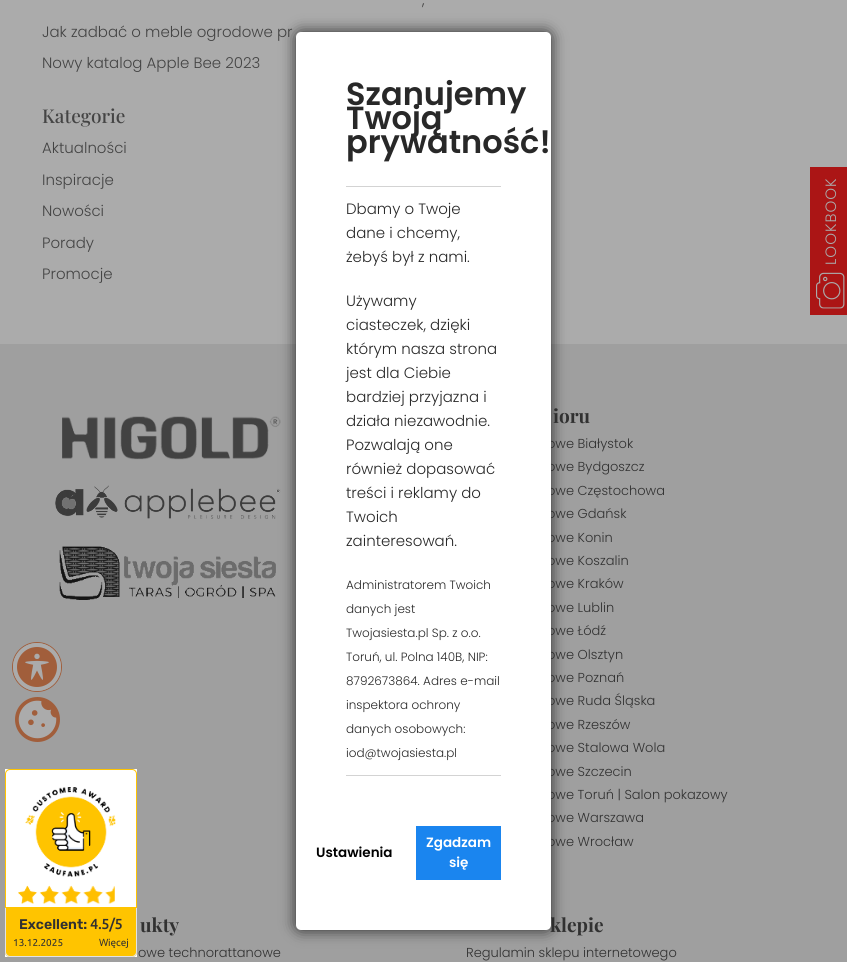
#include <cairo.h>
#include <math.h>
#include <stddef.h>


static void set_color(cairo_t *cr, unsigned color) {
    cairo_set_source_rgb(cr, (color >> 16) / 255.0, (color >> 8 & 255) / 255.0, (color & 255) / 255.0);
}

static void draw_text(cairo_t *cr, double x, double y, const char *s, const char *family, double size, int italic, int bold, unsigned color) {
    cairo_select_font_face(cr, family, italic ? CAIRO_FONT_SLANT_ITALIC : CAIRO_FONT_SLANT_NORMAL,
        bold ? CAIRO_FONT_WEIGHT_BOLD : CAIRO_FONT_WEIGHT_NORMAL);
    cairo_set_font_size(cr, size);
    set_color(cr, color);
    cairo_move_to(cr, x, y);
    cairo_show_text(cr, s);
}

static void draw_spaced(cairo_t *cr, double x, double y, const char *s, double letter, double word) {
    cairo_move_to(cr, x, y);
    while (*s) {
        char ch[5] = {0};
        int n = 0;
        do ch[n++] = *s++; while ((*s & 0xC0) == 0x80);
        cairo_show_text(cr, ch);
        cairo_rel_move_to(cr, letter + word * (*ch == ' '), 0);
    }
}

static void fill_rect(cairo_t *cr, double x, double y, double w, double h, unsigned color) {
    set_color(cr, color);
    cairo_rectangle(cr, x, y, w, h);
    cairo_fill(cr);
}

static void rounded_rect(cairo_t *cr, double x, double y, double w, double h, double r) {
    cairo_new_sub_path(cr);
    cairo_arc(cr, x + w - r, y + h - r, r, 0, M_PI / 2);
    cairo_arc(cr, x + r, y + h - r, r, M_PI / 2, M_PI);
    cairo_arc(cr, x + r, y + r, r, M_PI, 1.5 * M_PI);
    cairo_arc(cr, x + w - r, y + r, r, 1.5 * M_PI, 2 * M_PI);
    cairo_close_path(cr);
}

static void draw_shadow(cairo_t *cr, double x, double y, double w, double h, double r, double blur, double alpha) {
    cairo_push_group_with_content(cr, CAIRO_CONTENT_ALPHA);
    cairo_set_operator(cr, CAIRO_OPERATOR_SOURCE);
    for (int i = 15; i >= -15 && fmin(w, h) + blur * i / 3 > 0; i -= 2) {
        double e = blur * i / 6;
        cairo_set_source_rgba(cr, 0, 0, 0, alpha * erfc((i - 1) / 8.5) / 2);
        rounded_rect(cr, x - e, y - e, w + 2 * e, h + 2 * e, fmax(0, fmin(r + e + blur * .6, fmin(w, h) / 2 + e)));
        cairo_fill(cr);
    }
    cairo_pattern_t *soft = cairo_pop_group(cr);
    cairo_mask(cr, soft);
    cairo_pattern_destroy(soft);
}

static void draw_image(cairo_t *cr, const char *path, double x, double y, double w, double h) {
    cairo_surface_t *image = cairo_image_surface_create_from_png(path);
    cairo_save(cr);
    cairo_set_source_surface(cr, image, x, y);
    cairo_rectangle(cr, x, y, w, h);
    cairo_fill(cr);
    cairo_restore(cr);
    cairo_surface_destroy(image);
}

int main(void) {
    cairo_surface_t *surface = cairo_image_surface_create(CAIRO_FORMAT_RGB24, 847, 962);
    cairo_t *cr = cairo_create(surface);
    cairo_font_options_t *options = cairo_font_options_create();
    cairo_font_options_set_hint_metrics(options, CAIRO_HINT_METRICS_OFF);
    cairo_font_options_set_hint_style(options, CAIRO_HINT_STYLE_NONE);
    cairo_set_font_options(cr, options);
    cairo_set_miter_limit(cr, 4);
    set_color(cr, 0xABABAB);
    cairo_paint(cr);
    draw_text(cr, 422, 5, ",", "Poppins Light", 15, 0, 0, 0x444444);
    draw_text(cr, 42, 37, "Jak zadbać o meble ogrodowe pr", "Poppins Light", 15, 0, 0, 0x444444);
    draw_text(cr, 42, 68, "Nowy katalog Apple Bee 2023", "Poppins Light", 15, 0, 0, 0x444444);
    draw_text(cr, 42, 123, "Kategorie", "Playfair Display Medium", 19, 0, 0, 0x444444);
    draw_text(cr, 42, 153, "Aktualności", "Poppins Light", 15, 0, 0, 0x444444);
    draw_text(cr, 42, 185, "Inspiracje", "Poppins Light", 15, 0, 0, 0x444444);
    draw_text(cr, 42, 216, "Nowości", "Poppins Light", 15, 0, 0, 0x444444);
    draw_text(cr, 42, 248, "Porady", "Poppins Light", 15, 0, 0, 0x444444);
    draw_text(cr, 42, 279, "Promocje", "Poppins Light", 15, 0, 0, 0x444444);
    fill_rect(cr, 0, 344, 847, 618, 0x9F9F9F);
    draw_image(cr, "assets/img1.png", 62, 416, 219, 44);
    draw_image(cr, "assets/img2.png", 55, 485, 226, 34);
    draw_image(cr, "assets/img3.png", 59, 546, 217, 54);
    draw_text(cr, 553, 423, "ioru", "Playfair Display", 19, 0, 1, 0x313131);
    draw_text(cr, 547, 448, "owe Białystok", "Poppins Light", 13, 0, 0, 0x313131);
    draw_text(cr, 547, 471, "owe Bydgoszcz", "Poppins Light", 13, 0, 0, 0x313131);
    draw_text(cr, 547, 495, "owe Częstochowa", "Poppins Light", 13, 0, 0, 0x313131);
    draw_text(cr, 547, 518, "owe Gdańsk", "Poppins Light", 13, 0, 0, 0x313131);
    draw_text(cr, 547, 542, "owe Konin", "Poppins Light", 13, 0, 0, 0x313131);
    draw_text(cr, 547, 565, "owe Koszalin", "Poppins Light", 13, 0, 0, 0x313131);
    draw_text(cr, 547, 588, "owe Kraków", "Poppins Light", 13, 0, 0, 0x313131);
    draw_text(cr, 547, 612, "owe Lublin", "Poppins Light", 13, 0, 0, 0x313131);
    draw_text(cr, 547, 635, "owe Łódź", "Poppins Light", 13, 0, 0, 0x313131);
    draw_text(cr, 547, 659, "owe Olsztyn", "Poppins Light", 13, 0, 0, 0x313131);
    draw_text(cr, 547, 682, "owe Poznań", "Poppins Light", 13, 0, 0, 0x313131);
    draw_text(cr, 547, 705, "owe Ruda Śląska", "Poppins Light", 13, 0, 0, 0x313131);
    draw_text(cr, 547, 729, "owe Rzeszów", "Poppins Light", 13, 0, 0, 0x313131);
    draw_text(cr, 547, 752, "owe Stalowa Wola", "Poppins Light", 13, 0, 0, 0x313131);
    draw_text(cr, 547, 776, "owe Szczecin", "Poppins Light", 13, 0, 0, 0x313131);
    draw_text(cr, 547, 799, "owe Toruń | Salon pokazowy", "Poppins Light", 13, 0, 0, 0x313131);
    draw_text(cr, 547, 822, "owe Warszawa", "Poppins Light", 13, 0, 0, 0x313131);
    draw_text(cr, 547, 846, "owe Wrocław", "Poppins Light", 13, 0, 0, 0x313131);
    draw_text(cr, 140, 932, "ukty", "Playfair Display", 19, 0, 1, 0x313131);
    draw_text(cr, 138, 957, "owe technorattanowe", "Poppins Light", 13, 0, 0, 0x313131);
    draw_text(cr, 550, 932, "klepie", "Playfair Display", 19, 0, 1, 0x313131);
    draw_text(cr, 466, 957, "Regulamin sklepu internetowego", "Poppins Light", 13, 0, 0, 0x313131);
    set_color(cr, 0x282828);
    draw_shadow(cr, 296, 32, 255, 898, 5, 7.5, 1);
    set_color(cr, 0xFFFFFF);
    rounded_rect(cr, 296, 32, 255, 898, 5);
    cairo_fill(cr);
    draw_text(cr, 346, 105, "Szanujemy", "Poppins SemiBold", 32, 0, 0, 0x282828);
    draw_text(cr, 346, 129, "Twoją", "Poppins SemiBold", 32, 0, 0, 0x282828);
    draw_text(cr, 346, 153, "prywatność!", "Poppins SemiBold", 32, 0, 0, 0x282828);
    fill_rect(cr, 346, 186, 155, 1, 0xD3D3D3);
    draw_text(cr, 346, 214, "Dbamy o Twoje", "Poppins Light", 15, 0, 0, 0x282828);
    draw_text(cr, 346, 238, "dane i chcemy,", "Poppins Light", 15, 0, 0, 0x282828);
    draw_text(cr, 346, 262, "żebyś był z nami.", "Poppins Light", 15, 0, 0, 0x282828);
    draw_text(cr, 346, 306, "Używamy", "Poppins Light", 15, 0, 0, 0x282828);
    draw_text(cr, 346, 330, "ciasteczek, dzięki", "Poppins Light", 15, 0, 0, 0x282828);
    draw_text(cr, 346, 354, "którym nasza strona", "Poppins Light", 15, 0, 0, 0x282828);
    draw_text(cr, 346, 378, "jest dla Ciebie", "Poppins Light", 15, 0, 0, 0x282828);
    draw_text(cr, 346, 402, "bardziej przyjazna i", "Poppins Light", 15, 0, 0, 0x282828);
    draw_text(cr, 346, 426, "działa niezawodnie.", "Poppins Light", 15, 0, 0, 0x282828);
    draw_text(cr, 346, 450, "Pozwalają one", "Poppins Light", 15, 0, 0, 0x282828);
    draw_text(cr, 346, 474, "również dopasować", "Poppins Light", 15, 0, 0, 0x282828);
    draw_text(cr, 346, 498, "treści i reklamy do", "Poppins Light", 15, 0, 0, 0x282828);
    draw_text(cr, 346, 522, "Twoich", "Poppins Light", 15, 0, 0, 0x282828);
    draw_text(cr, 346, 546, "zainteresowań.", "Poppins Light", 15, 0, 0, 0x282828);
    draw_text(cr, 346, 589, "Administratorem Twoich", "Poppins Light", 12, 0, 0, 0x282828);
    draw_text(cr, 346, 613, "danych jest", "Poppins Light", 12, 0, 0, 0x282828);
    draw_text(cr, 346, 637, "Twojasiesta.pl Sp. z o.o.", "Poppins Light", 12, 0, 0, 0x282828);
    draw_text(cr, 346, 661, "Toruń, ul. Polna 140B, NIP:", "Poppins Light", 12, 0, 0, 0x282828);
    draw_text(cr, 346, 685, "8792673864. Adres e-mail", "Poppins Light", 12, 0, 0, 0x282828);
    draw_text(cr, 346, 709, "inspektora ochrony", "Poppins Light", 12, 0, 0, 0x282828);
    draw_text(cr, 346, 733, "danych osobowych:", "Poppins Light", 12, 0, 0, 0x282828);
    draw_text(cr, 346, 757, "iod@twojasiesta.pl", "Poppins Light", 12, 0, 0, 0x282828);
    fill_rect(cr, 346, 775, 155, 1, 0xD3D3D3);
    draw_text(cr, 316, 857, "Ustawienia", "Poppins SemiBold", 13.5, 0, 0, 0x000000);
    fill_rect(cr, 416, 826, 85, 54, 0x1A85EF);
    draw_text(cr, 426, 847, "Zgadzam", "Poppins SemiBold", 13.5, 0, 0, 0xFFFFFF);
    draw_text(cr, 449, 867, "się", "Poppins SemiBold", 13.5, 0, 0, 0xFFFFFF);
    fill_rect(cr, 810, 167, 37, 148, 0xAB1515);
    cairo_select_font_face(cr, "Poppins Light", CAIRO_FONT_SLANT_NORMAL, CAIRO_FONT_WEIGHT_NORMAL);
    cairo_set_font_size(cr, 15);
    set_color(cr, 0xABABAB);
    cairo_save(cr);
    cairo_translate(cr, 836, 265);
    cairo_rotate(cr, -90 * M_PI / 180);
    draw_spaced(cr, 0, 0, "LOOKBOOK", 1, 0);
    cairo_restore(cr);
    draw_image(cr, "assets/img4.png", 816, 272, 29, 37);
    cairo_arc(cr, 37, 667, 24.5, 0, 2 * M_PI);
    set_color(cr, 0xA15E3B);
    cairo_set_line_width(cr, 1);
    cairo_stroke(cr);
    cairo_arc(cr, 37, 667, 22, 0, 2 * M_PI);
    cairo_fill_preserve(cr);
    set_color(cr, 0xABABAB);
    cairo_set_line_width(cr, 4);
    cairo_stroke(cr);
    draw_image(cr, "assets/img5.png", 25, 653, 24, 27);
    set_color(cr, 0xA15E3B);
    cairo_arc(cr, 37.5, 719.5, 22.5, 0, 2 * M_PI);
    cairo_fill(cr);
    draw_image(cr, "assets/img6.png", 18, 700, 39, 39);
    fill_rect(cr, 5, 769, 132, 188, 0xFFFFFF);
    cairo_new_path(cr);
    cairo_move_to(cr, 10, 769.5);
    cairo_line_to(cr, 132, 769.5);
    cairo_curve_to(cr, 134.5, 769.5, 136.5, 771.5, 136.5, 774);
    cairo_line_to(cr, 136.5, 907.5);
    cairo_line_to(cr, 5.5, 907.5);
    cairo_line_to(cr, 5.5, 774);
    cairo_curve_to(cr, 5.5, 771.5, 7.5, 769.5, 10, 769.5);
    cairo_close_path(cr);
    set_color(cr, 0xFFC400);
    cairo_set_line_width(cr, 1);
    cairo_stroke(cr);
    draw_image(cr, "assets/img7.png", 25, 787, 91, 90);
    draw_image(cr, "assets/img8.png", 18, 885, 97, 19);
    cairo_new_path(cr);
    cairo_move_to(cr, 5, 908);
    cairo_line_to(cr, 137, 908);
    cairo_line_to(cr, 137, 952);
    cairo_curve_to(cr, 137, 955, 135, 957, 132, 957);
    cairo_line_to(cr, 10, 957);
    cairo_curve_to(cr, 7, 957, 5, 955, 5, 952);
    cairo_close_path(cr);
    cairo_fill(cr);
    set_color(cr, 0xE3E3E3);
    cairo_set_fill_rule(cr, CAIRO_FILL_RULE_EVEN_ODD);
    cairo_new_path(cr);
    cairo_move_to(cr, 5, 908);
    cairo_line_to(cr, 137, 908);
    cairo_line_to(cr, 137, 952);
    cairo_curve_to(cr, 137, 955, 135, 957, 132, 957);
    cairo_line_to(cr, 10, 957);
    cairo_curve_to(cr, 7, 957, 5, 955, 5, 952);
    cairo_close_path(cr);
    cairo_move_to(cr, 6, 908);
    cairo_line_to(cr, 136, 908);
    cairo_line_to(cr, 136, 952);
    cairo_curve_to(cr, 136, 954, 134, 956, 132, 956);
    cairo_line_to(cr, 10, 956);
    cairo_curve_to(cr, 8, 956, 6, 954, 6, 952);
    cairo_close_path(cr);
    cairo_fill(cr);
    draw_text(cr, 19, 929, "Excellent:", "Rubik SemiBold", 14, 0, 0, 0x313131);
    draw_text(cr, 90, 929, "4.5/5", "Ubuntu", 14, 0, 1, 0x313131);
    draw_text(cr, 13, 946, "13.12.2025", "Ubuntu", 10, 0, 0, 0x313131);
    draw_text(cr, 99, 946, "W", "Noto Sans", 10, 0, 0, 0x313131);
    draw_text(cr, 108, 946, "ięcej", "Ubuntu", 10, 0, 0, 0x313131);
    cairo_surface_write_to_png(surface, "output.png");
    cairo_font_options_destroy(options);
    cairo_destroy(cr);
    cairo_surface_destroy(surface);
    return 0;
}
